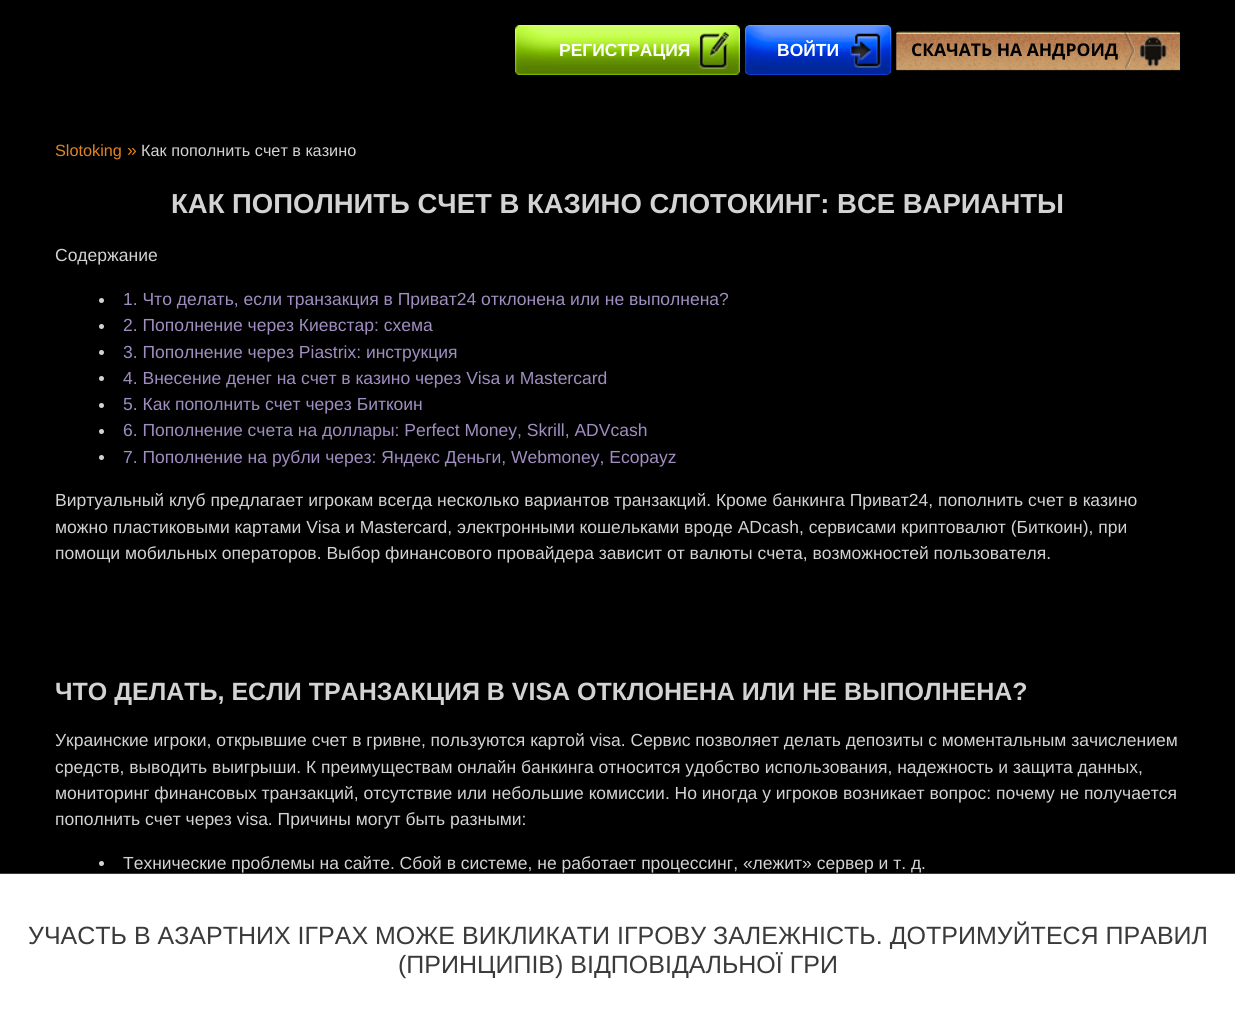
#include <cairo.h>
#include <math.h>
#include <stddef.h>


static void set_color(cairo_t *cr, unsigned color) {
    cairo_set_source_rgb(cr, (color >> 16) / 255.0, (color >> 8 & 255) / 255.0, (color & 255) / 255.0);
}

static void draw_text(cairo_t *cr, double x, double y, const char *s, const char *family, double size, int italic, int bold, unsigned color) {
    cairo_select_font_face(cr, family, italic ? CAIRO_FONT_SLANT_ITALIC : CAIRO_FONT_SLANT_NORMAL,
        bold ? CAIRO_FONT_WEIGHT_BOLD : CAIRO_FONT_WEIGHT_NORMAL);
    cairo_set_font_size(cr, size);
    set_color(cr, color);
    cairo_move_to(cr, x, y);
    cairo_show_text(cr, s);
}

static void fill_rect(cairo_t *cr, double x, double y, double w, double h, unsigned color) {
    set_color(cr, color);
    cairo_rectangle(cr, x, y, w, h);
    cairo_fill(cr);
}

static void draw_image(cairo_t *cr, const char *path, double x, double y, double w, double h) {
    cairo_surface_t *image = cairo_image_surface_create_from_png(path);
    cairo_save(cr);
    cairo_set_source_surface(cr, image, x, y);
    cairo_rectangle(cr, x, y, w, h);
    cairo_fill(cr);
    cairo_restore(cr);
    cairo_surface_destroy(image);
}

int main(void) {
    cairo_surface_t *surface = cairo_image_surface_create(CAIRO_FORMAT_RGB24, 1235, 1027);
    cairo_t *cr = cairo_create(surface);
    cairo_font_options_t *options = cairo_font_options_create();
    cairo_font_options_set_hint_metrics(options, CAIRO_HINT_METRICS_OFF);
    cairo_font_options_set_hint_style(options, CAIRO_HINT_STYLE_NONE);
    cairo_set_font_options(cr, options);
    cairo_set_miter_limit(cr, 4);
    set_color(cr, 0x000000);
    cairo_paint(cr);
    draw_image(cr, "assets/img1.png", 515, 25, 225, 50);
    draw_text(cr, 559, 56, "РЕГИСТРАЦИЯ", "Liberation Sans", 17.5, 0, 1, 0xFFFFFF);
    draw_image(cr, "assets/img2.png", 698, 32, 32, 37);
    draw_image(cr, "assets/img3.png", 745, 25, 147, 50);
    draw_text(cr, 777, 56, "ВОЙТИ", "Liberation Sans", 17.5, 0, 1, 0xFFFFFF);
    draw_image(cr, "assets/img4.png", 850, 33, 32, 35);
    draw_image(cr, "assets/img5.png", 896, 31, 284, 40);
    draw_text(cr, 911, 56, "СКАЧАТЬ НА АНДРОИД", "Open Sans", 17.5, 0, 1, 0x000000);
    draw_image(cr, "assets/img6.png", 1122, 31, 57, 2);
    draw_image(cr, "assets/img7.png", 1125, 32, 10, 37);
    draw_image(cr, "assets/img8.png", 1140, 35, 27, 32);
    draw_text(cr, 55, 156, "Slotoking", "Liberation Sans", 16.25, 0, 0, 0xE08523);
    draw_text(cr, 127, 156, "»", "Liberation Sans", 17.5, 0, 0, 0xE08523);
    draw_text(cr, 141, 156, "Как пополнить счет в казино", "Liberation Sans", 16.25, 0, 0, 0xD3D3D3);
    draw_text(cr, 171, 213, "КАК ПОПОЛНИТЬ СЧЕТ В КАЗИНО СЛОТОКИНГ: ВСЕ ВАРИАНТЫ", "Liberation Sans", 27.5, 0, 1, 0xD3D3D3);
    draw_text(cr, 55, 261, "Содержание", "Liberation Sans", 17.5, 0, 0, 0xD3D3D3);
    cairo_new_path(cr);
    cairo_arc(cr, 101.5, 300.5, 2.5, 0, 2 * M_PI);
    cairo_fill(cr);
    draw_text(cr, 123, 305, "1. Что делать, если транзакция в Приват24 отклонена или не выполнена?", "Liberation Sans", 17.5, 0, 0, 0xA08EC0);
    set_color(cr, 0xD3D3D3);
    cairo_new_path(cr);
    cairo_arc(cr, 101.5, 326.5, 2.5, 0, 2 * M_PI);
    cairo_fill(cr);
    draw_text(cr, 123, 331, "2. Пополнение через Киевстар: схема", "Liberation Sans", 17.5, 0, 0, 0xA08EC0);
    set_color(cr, 0xD3D3D3);
    cairo_new_path(cr);
    cairo_arc(cr, 101.5, 352.5, 2.5, 0, 2 * M_PI);
    cairo_fill(cr);
    draw_text(cr, 123, 358, "3. Пополнение через Piastrix: инструкция", "Liberation Sans", 17.5, 0, 0, 0xA08EC0);
    set_color(cr, 0xD3D3D3);
    cairo_new_path(cr);
    cairo_arc(cr, 101.5, 378.5, 2.5, 0, 2 * M_PI);
    cairo_fill(cr);
    draw_text(cr, 123, 384, "4. Внесение денег на счет в казино через Visa и Mastercard", "Liberation Sans", 17.5, 0, 0, 0xA08EC0);
    set_color(cr, 0xD3D3D3);
    cairo_new_path(cr);
    cairo_arc(cr, 101.5, 405.5, 2.5, 0, 2 * M_PI);
    cairo_fill(cr);
    draw_text(cr, 123, 410, "5. Как пополнить счет через Биткоин", "Liberation Sans", 17.5, 0, 0, 0xA08EC0);
    set_color(cr, 0xD3D3D3);
    cairo_new_path(cr);
    cairo_arc(cr, 101.5, 431.5, 2.5, 0, 2 * M_PI);
    cairo_fill(cr);
    draw_text(cr, 123, 436, "6. Пополнение счета на доллары: Perfect Money, Skrill, ADVcash", "Liberation Sans", 17.5, 0, 0, 0xA08EC0);
    set_color(cr, 0xD3D3D3);
    cairo_new_path(cr);
    cairo_arc(cr, 101.5, 457.5, 2.5, 0, 2 * M_PI);
    cairo_fill(cr);
    draw_text(cr, 123, 463, "7. Пополнение на рубли через: Яндекс Деньги, Webmoney, Ecopayz", "Liberation Sans", 17.5, 0, 0, 0xA08EC0);
    draw_text(cr, 55, 506, "Виртуальный клуб предлагает игрокам всегда несколько вариантов транзакций. Кроме банкинга Приват24, пополнить счет в казино", "Liberation Sans", 17.5, 0, 0, 0xD3D3D3);
    draw_text(cr, 55, 533, "можно пластиковыми картами Visa и Mastercard, электронными кошельками вроде ADcash, сервисами криптовалют (Биткоин), при", "Liberation Sans", 17.5, 0, 0, 0xD3D3D3);
    draw_text(cr, 55, 559, "помощи мобильных операторов. Выбор финансового провайдера зависит от валюты счета, возможностей пользователя.", "Liberation Sans", 17.5, 0, 0, 0xD3D3D3);
    draw_text(cr, 55, 700, "ЧТО ДЕЛАТЬ, ЕСЛИ ТРАНЗАКЦИЯ В VISA ОТКЛОНЕНА ИЛИ НЕ ВЫПОЛНЕНА?", "Liberation Sans", 25, 0, 1, 0xD3D3D3);
    draw_text(cr, 55, 746, "Украинские игроки, открывшие счет в гривне, пользуются картой visa. Сервис позволяет делать депозиты с моментальным зачислением", "Liberation Sans", 17.5, 0, 0, 0xD3D3D3);
    draw_text(cr, 55, 773, "средств, выводить выигрыши. К преимуществам онлайн банкинга относится удобство использования, надежность и защита данных,", "Liberation Sans", 17.5, 0, 0, 0xD3D3D3);
    draw_text(cr, 55, 799, "мониторинг финансовых транзакций, отсутствие или небольшие комиссии. Но иногда у игроков возникает вопрос: почему не получается", "Liberation Sans", 17.5, 0, 0, 0xD3D3D3);
    draw_text(cr, 55, 825, "пополнить счет через visa. Причины могут быть разными:", "Liberation Sans", 17.5, 0, 0, 0xD3D3D3);
    cairo_new_path(cr);
    cairo_arc(cr, 101.5, 863.5, 2.5, 0, 2 * M_PI);
    cairo_fill(cr);
    draw_text(cr, 123, 869, "Технические проблемы на сайте. Сбой в системе, не работает процессинг, «лежит» сервер и т. д.", "Liberation Sans", 17.5, 0, 0, 0xD3D3D3);
    fill_rect(cr, 0, 874, 1235, 153, 0xFFFFFF);
    fill_rect(cr, 0, 873, 1235, 1, 0x3B3A3A);
    draw_text(cr, 28, 944, "УЧАСТЬ В АЗАРТНИХ ІГРАХ МОЖЕ ВИКЛИКАТИ ІГРОВУ ЗАЛЕЖНІСТЬ. ДОТРИМУЙТЕСЯ ПРАВИЛ", "Liberation Sans", 25, 0, 0, 0x3B3A3A);
    draw_text(cr, 398, 973, "(ПРИНЦИПІВ) ВІДПОВІДАЛЬНОЇ ГРИ", "Liberation Sans", 25, 0, 0, 0x3B3A3A);
    cairo_surface_write_to_png(surface, "output.png");
    cairo_font_options_destroy(options);
    cairo_destroy(cr);
    cairo_surface_destroy(surface);
    return 0;
}
